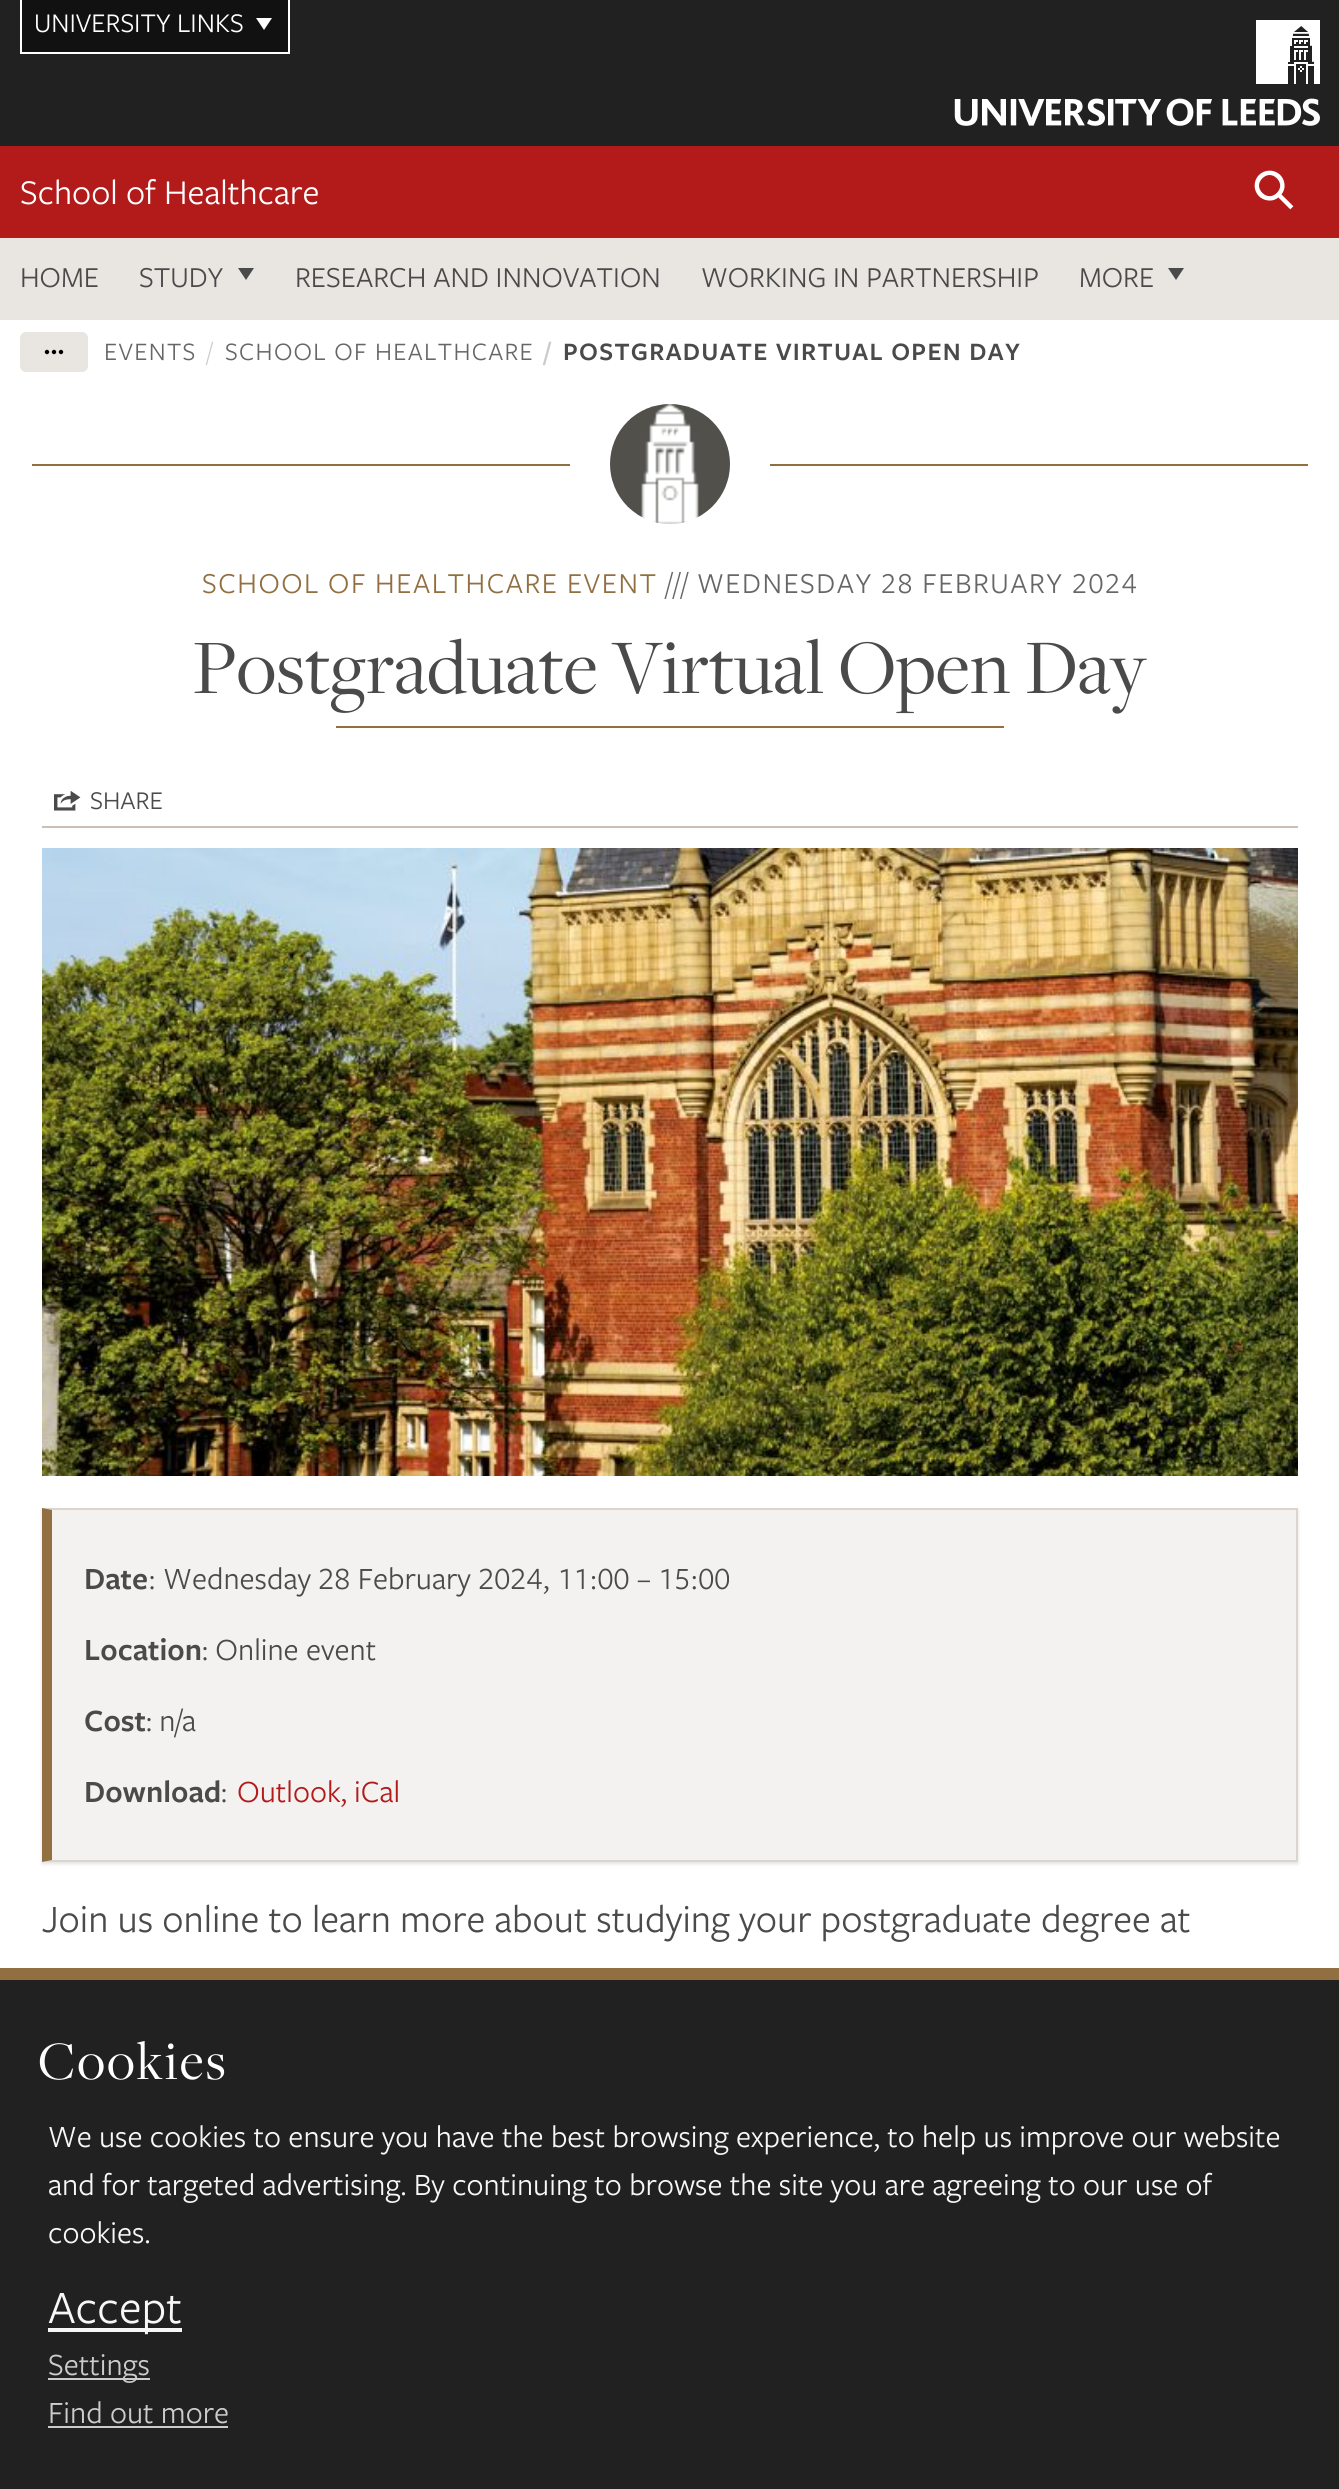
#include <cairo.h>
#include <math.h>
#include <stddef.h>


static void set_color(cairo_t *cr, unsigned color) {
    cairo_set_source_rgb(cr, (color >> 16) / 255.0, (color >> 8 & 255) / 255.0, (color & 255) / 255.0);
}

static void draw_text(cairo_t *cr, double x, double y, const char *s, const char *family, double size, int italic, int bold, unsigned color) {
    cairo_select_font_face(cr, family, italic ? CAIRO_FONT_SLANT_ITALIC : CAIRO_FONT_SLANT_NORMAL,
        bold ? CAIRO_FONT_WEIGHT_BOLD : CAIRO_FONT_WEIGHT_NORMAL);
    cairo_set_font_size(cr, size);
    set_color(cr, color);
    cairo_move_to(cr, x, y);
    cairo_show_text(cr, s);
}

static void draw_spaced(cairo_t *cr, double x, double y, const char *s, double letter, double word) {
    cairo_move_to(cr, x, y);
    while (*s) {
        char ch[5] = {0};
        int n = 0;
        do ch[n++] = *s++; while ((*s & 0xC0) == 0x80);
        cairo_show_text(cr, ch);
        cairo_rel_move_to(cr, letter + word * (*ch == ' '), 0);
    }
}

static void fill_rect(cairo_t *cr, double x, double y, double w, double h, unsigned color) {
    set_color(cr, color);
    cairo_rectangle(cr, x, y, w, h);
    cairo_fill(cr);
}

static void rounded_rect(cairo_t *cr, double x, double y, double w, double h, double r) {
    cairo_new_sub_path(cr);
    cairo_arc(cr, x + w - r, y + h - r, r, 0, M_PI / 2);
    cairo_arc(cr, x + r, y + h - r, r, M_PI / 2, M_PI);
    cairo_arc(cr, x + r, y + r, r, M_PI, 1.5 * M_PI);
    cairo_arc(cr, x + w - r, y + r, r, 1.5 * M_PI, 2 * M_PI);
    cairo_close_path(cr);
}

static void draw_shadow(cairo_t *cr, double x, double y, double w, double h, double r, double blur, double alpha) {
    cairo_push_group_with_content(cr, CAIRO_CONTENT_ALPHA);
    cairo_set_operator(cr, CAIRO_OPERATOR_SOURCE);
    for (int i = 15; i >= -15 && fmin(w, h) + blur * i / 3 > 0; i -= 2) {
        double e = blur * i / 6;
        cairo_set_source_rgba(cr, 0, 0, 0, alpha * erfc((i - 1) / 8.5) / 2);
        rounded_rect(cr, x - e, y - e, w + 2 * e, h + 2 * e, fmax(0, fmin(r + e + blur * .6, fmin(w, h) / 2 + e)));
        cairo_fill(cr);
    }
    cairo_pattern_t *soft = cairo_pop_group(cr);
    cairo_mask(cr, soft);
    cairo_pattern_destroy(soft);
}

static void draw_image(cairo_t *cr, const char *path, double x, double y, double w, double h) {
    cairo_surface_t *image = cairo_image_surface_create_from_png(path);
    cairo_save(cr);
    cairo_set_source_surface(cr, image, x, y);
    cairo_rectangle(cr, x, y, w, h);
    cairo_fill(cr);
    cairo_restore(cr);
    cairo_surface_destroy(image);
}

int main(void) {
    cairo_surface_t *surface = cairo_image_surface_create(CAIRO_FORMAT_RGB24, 1339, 2489);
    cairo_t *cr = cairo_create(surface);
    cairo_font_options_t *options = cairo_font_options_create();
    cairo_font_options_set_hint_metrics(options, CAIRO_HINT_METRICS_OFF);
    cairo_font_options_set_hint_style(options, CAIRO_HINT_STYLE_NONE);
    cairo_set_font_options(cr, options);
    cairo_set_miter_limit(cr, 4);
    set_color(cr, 0xFFFFFF);
    cairo_paint(cr);
    fill_rect(cr, 0, 0, 1339, 146, 0x212121);
    draw_image(cr, "assets/img1.png", 954, 20, 366, 106);
    fill_rect(cr, 22, 0, 266, 52, 0x111111);
    fill_rect(cr, 288, 0, 2, 54, 0xFFFFFF);
    fill_rect(cr, 20, 52, 270, 2, 0xFFFFFF);
    fill_rect(cr, 20, 0, 2, 54, 0xFFFFFF);
    draw_text(cr, 34, 32, "UNIVERSITY LINKS", "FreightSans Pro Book", 28, 0, 0, 0xFFFFFF);
    cairo_new_path(cr);
    cairo_move_to(cr, 272, 18);
    cairo_line_to(cr, 264, 30);
    cairo_line_to(cr, 256, 18);
    cairo_close_path(cr);
    cairo_fill(cr);
    fill_rect(cr, 0, 146, 1339, 92, 0xB31B1B);
    draw_text(cr, 20, 204, "School of Healthcare", "FreightSans Pro Book", 36, 0, 0, 0xFFFFFF);
    draw_image(cr, "assets/img2.png", 1254, 170, 40, 40);
    fill_rect(cr, 0, 238, 1339, 82, 0xE9E5E1);
    draw_text(cr, 20, 287, "HOME", "FreightSans Pro Book", 30, 0, 0, 0x4A4A4A);
    draw_text(cr, 139, 287, "STUDY", "FreightSans Pro Book", 30, 0, 0, 0x4A4A4A);
    cairo_new_path(cr);
    cairo_move_to(cr, 254, 268);
    cairo_line_to(cr, 246, 280);
    cairo_line_to(cr, 238, 268);
    cairo_close_path(cr);
    cairo_fill(cr);
    draw_text(cr, 295, 287, "RESEARCH AND INNOVATION", "FreightSans Pro Book", 30, 0, 0, 0x4A4A4A);
    draw_text(cr, 701, 287, "WORKING IN PARTNERSHIP", "FreightSans Pro Book", 30, 0, 0, 0x4A4A4A);
    draw_text(cr, 1079, 287, "MORE", "FreightSans Pro Book", 30, 0, 0, 0x4A4A4A);
    cairo_new_path(cr);
    cairo_move_to(cr, 1184, 268);
    cairo_line_to(cr, 1176, 280);
    cairo_line_to(cr, 1168, 268);
    cairo_close_path(cr);
    cairo_fill(cr);
    set_color(cr, 0xE9E5E1);
    rounded_rect(cr, 20, 332, 68, 40, 6);
    cairo_fill(cr);
    draw_image(cr, "assets/img3.png", 44, 349, 20, 6);
    cairo_set_font_size(cr, 26);
    set_color(cr, 0x666666);
    draw_spaced(cr, 104, 360, "EVENTS", 1.3, 0);
    set_color(cr, 0xCCCCCC);
    draw_spaced(cr, 207, 360, "/", 1.3, 0);
    set_color(cr, 0x666666);
    draw_spaced(cr, 225, 360, "SCHOOL OF HEALTHCARE", 1.3, 0);
    cairo_select_font_face(cr, "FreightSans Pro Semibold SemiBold", CAIRO_FONT_SLANT_NORMAL, CAIRO_FONT_WEIGHT_NORMAL);
    set_color(cr, 0xCCCCCC);
    draw_spaced(cr, 544, 360, "/", 1.3, 0);
    set_color(cr, 0x4A4A4A);
    draw_spaced(cr, 563, 360, "POSTGRADUATE VIRTUAL OPEN DAY", 1.3, 0);
    fill_rect(cr, 32, 464, 538, 2, 0x916F40);
    draw_image(cr, "assets/img4.png", 610, 404, 120, 120);
    fill_rect(cr, 770, 464, 538, 2, 0x916F40);
    cairo_select_font_face(cr, "FreightSans Pro Book", CAIRO_FONT_SLANT_NORMAL, CAIRO_FONT_WEIGHT_NORMAL);
    cairo_set_font_size(cr, 30);
    draw_spaced(cr, 202, 593, "SCHOOL OF HEALTHCARE EVENT", 1.5, 0);
    set_color(cr, 0x666666);
    draw_spaced(cr, 666, 593, "///", 1.5, 0);
    cairo_select_font_face(cr, "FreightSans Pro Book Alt", CAIRO_FONT_SLANT_NORMAL, CAIRO_FONT_WEIGHT_NORMAL);
    draw_spaced(cr, 697, 593, "WEDNESDAY 28 FEBRUARY 2024", 1.5, 0);
    draw_text(cr, 193, 693, "Postgraduate Virtual Open Day", "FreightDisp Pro", 80, 0, 0, 0x4A4A4A);
    fill_rect(cr, 336, 726, 668, 2, 0x916F40);
    draw_image(cr, "assets/img5.png", 54, 790, 27, 21);
    draw_text(cr, 90, 809, "SHARE", "FreightSans Pro Book", 26.5, 0, 0, 0x4A4A4A);
    fill_rect(cr, 42, 826, 1256, 2, 0xC9BFB5);
    draw_image(cr, "assets/img6.png", 42, 848, 1256, 628);
    set_color(cr, 0x000000);
    draw_shadow(cr, 42, 1510, 1256, 354, 0, 2, 0.12);
    fill_rect(cr, 52, 1510, 1244, 350, 0xF4F2F0);
    set_color(cr, 0xDDD5CC);
    cairo_new_path(cr);
    cairo_move_to(cr, 42, 1508);
    cairo_line_to(cr, 1298, 1508);
    cairo_line_to(cr, 1296, 1510);
    cairo_line_to(cr, 52, 1510);
    cairo_close_path(cr);
    cairo_fill(cr);
    fill_rect(cr, 1296, 1508, 2, 354, 0xDDD5CC);
    cairo_new_path(cr);
    cairo_move_to(cr, 1298, 1862);
    cairo_line_to(cr, 42, 1862);
    cairo_line_to(cr, 52, 1860);
    cairo_line_to(cr, 1296, 1860);
    cairo_close_path(cr);
    cairo_fill(cr);
    set_color(cr, 0x916F40);
    cairo_new_path(cr);
    cairo_move_to(cr, 42, 1862);
    cairo_line_to(cr, 42, 1508);
    cairo_line_to(cr, 52, 1510);
    cairo_line_to(cr, 52, 1860);
    cairo_close_path(cr);
    cairo_fill(cr);
    draw_text(cr, 84, 1589, "Date", "FreightSans Pro Semibold SemiBold", 32, 0, 0, 0x4A4A4A);
    draw_text(cr, 148, 1589, ": Wednesday 28 February 2024, 11:00 – 15:00", "FreightSans Pro Book Alt", 32, 0, 0, 0x4A4A4A);
    draw_text(cr, 84, 1660, "Location", "FreightSans Pro Semibold SemiBold", 32, 0, 0, 0x4A4A4A);
    draw_text(cr, 202, 1660, ": Online event", "FreightSans Pro Book", 32, 0, 0, 0x4A4A4A);
    draw_text(cr, 84, 1731, "Cost", "FreightSans Pro Semibold SemiBold", 32, 0, 0, 0x4A4A4A);
    draw_text(cr, 146, 1731, ": n/a", "FreightSans Pro Book", 32, 0, 0, 0x4A4A4A);
    draw_text(cr, 84, 1802, "Download", "FreightSans Pro Semibold SemiBold", 32, 0, 0, 0x4A4A4A);
    draw_text(cr, 221, 1802, ":", "FreightSans Pro Book", 32, 0, 0, 0x4A4A4A);
    draw_text(cr, 237, 1802, "Outlook, iCal", "FreightSans Pro Book", 32, 0, 0, 0xB31B1B);
    draw_text(cr, 42, 1932, "Join us online to learn more about studying your postgraduate degree at", "FreightSans Pro Book", 40, 0, 0, 0x4A4A4A);
    fill_rect(cr, 0, 1980, 1339, 509, 0x212121);
    fill_rect(cr, 0, 1968, 1339, 12, 0x916F40);
    cairo_select_font_face(cr, "FreightDisp Pro", CAIRO_FONT_SLANT_NORMAL, CAIRO_FONT_WEIGHT_NORMAL);
    cairo_set_font_size(cr, 56);
    set_color(cr, 0xFFFFFF);
    draw_spaced(cr, 38, 2079, "Cookies", 2, 0);
    draw_text(cr, 48, 2147, "We use cookies to ensure you have the best browsing experience, to help us improve our website", "FreightSans Pro Book", 32, 0, 0, 0xF7F7F7);
    draw_text(cr, 48, 2195, "and for targeted advertising. By continuing to browse the site you are agreeing to our use of", "FreightSans Pro Book", 32, 0, 0, 0xF7F7F7);
    draw_text(cr, 48, 2243, "cookies.", "FreightSans Pro Book", 32, 0, 0, 0xF7F7F7);
    fill_rect(cr, 48, 2328, 134, 4, 0xF7F7F7);
    draw_text(cr, 48, 2323, "Accept", "FreightSans Pro Book", 48, 0, 0, 0xF7F7F7);
    fill_rect(cr, 48, 2378, 102, 2, 0xCCCCCC);
    draw_text(cr, 48, 2375, "Settings", "FreightSans Pro Book", 32, 0, 0, 0xCCCCCC);
    draw_text(cr, 48, 2423, "Find out more", "FreightSans Pro Book", 32, 0, 0, 0xCCCCCC);
    fill_rect(cr, 48, 2426, 180, 2, 0xCCCCCC);
    cairo_surface_write_to_png(surface, "output.png");
    cairo_font_options_destroy(options);
    cairo_destroy(cr);
    cairo_surface_destroy(surface);
    return 0;
}
